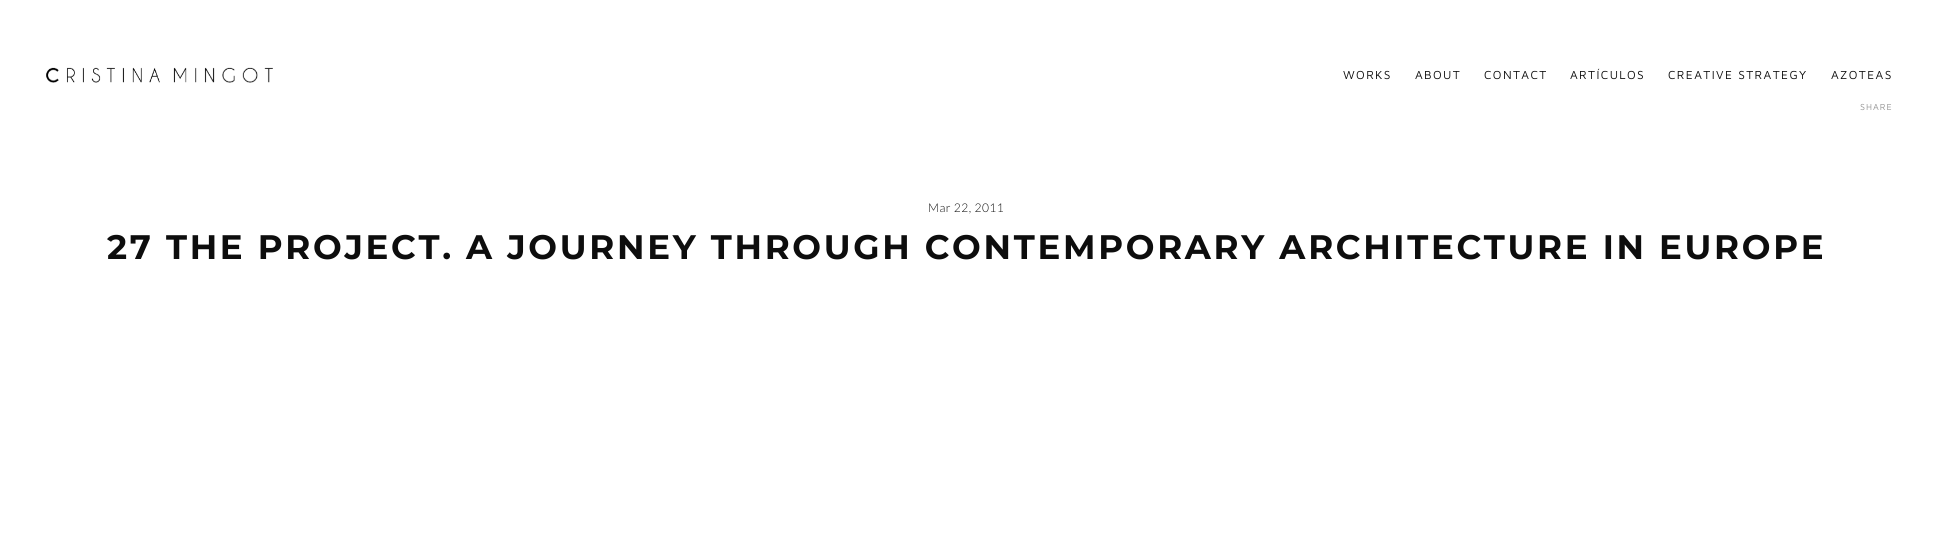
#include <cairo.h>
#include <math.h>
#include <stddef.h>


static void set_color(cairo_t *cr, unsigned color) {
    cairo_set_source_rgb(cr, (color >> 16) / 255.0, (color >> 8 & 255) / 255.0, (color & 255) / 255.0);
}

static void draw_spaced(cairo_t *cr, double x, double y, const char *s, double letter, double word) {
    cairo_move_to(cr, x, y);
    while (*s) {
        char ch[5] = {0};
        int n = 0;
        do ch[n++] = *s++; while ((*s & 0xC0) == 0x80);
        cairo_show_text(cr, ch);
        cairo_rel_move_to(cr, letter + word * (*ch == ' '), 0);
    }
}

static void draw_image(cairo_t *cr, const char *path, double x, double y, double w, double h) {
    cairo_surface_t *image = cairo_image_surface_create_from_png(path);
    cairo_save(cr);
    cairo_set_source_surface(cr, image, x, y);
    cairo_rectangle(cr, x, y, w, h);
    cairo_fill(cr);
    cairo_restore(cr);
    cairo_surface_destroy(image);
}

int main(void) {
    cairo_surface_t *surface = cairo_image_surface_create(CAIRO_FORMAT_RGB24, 1933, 558);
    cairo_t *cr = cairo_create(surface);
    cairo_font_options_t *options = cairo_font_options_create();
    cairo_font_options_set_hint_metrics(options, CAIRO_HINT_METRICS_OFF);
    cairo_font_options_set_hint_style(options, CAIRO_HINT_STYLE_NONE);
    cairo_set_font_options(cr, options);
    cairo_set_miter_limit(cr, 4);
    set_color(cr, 0xFFFFFF);
    cairo_paint(cr);
    draw_image(cr, "assets/img1.png", 46, 67, 227, 16);
    cairo_select_font_face(cr, "Maven Pro", CAIRO_FONT_SLANT_NORMAL, CAIRO_FONT_WEIGHT_NORMAL);
    cairo_set_font_size(cr, 12);
    set_color(cr, 0x0D0D0D);
    draw_spaced(cr, 1343, 79, "WORKS", 1.4, 0);
    draw_spaced(cr, 1415, 79, "ABOUT", 1.4, 0);
    draw_spaced(cr, 1484, 79, "CONTACT", 1.4, 0);
    draw_spaced(cr, 1570, 79, "ARTÍCULOS", 1.4, 0);
    draw_spaced(cr, 1668, 79, "CREATIVE STRATEGY", 1.4, 0);
    draw_spaced(cr, 1831, 79, "AZOTEAS", 1.4, 0);
    cairo_set_font_size(cr, 9);
    set_color(cr, 0x939393);
    draw_spaced(cr, 1860, 110, "SHARE", 1, 0);
    cairo_select_font_face(cr, "Lato Light", CAIRO_FONT_SLANT_NORMAL, CAIRO_FONT_WEIGHT_NORMAL);
    cairo_set_font_size(cr, 12);
    set_color(cr, 0x0D0D0D);
    draw_spaced(cr, 928, 212, "Mar 22, 2011", 0.5, 0);
    cairo_select_font_face(cr, "Montserrat", CAIRO_FONT_SLANT_NORMAL, CAIRO_FONT_WEIGHT_BOLD);
    cairo_set_font_size(cr, 34);
    draw_spaced(cr, 107, 259, "27 THE PROJECT. A JOURNEY THROUGH CONTEMPORARY ARCHITECTURE IN EUROPE", 2.72, 0);
    cairo_surface_write_to_png(surface, "output.png");
    cairo_font_options_destroy(options);
    cairo_destroy(cr);
    cairo_surface_destroy(surface);
    return 0;
}
